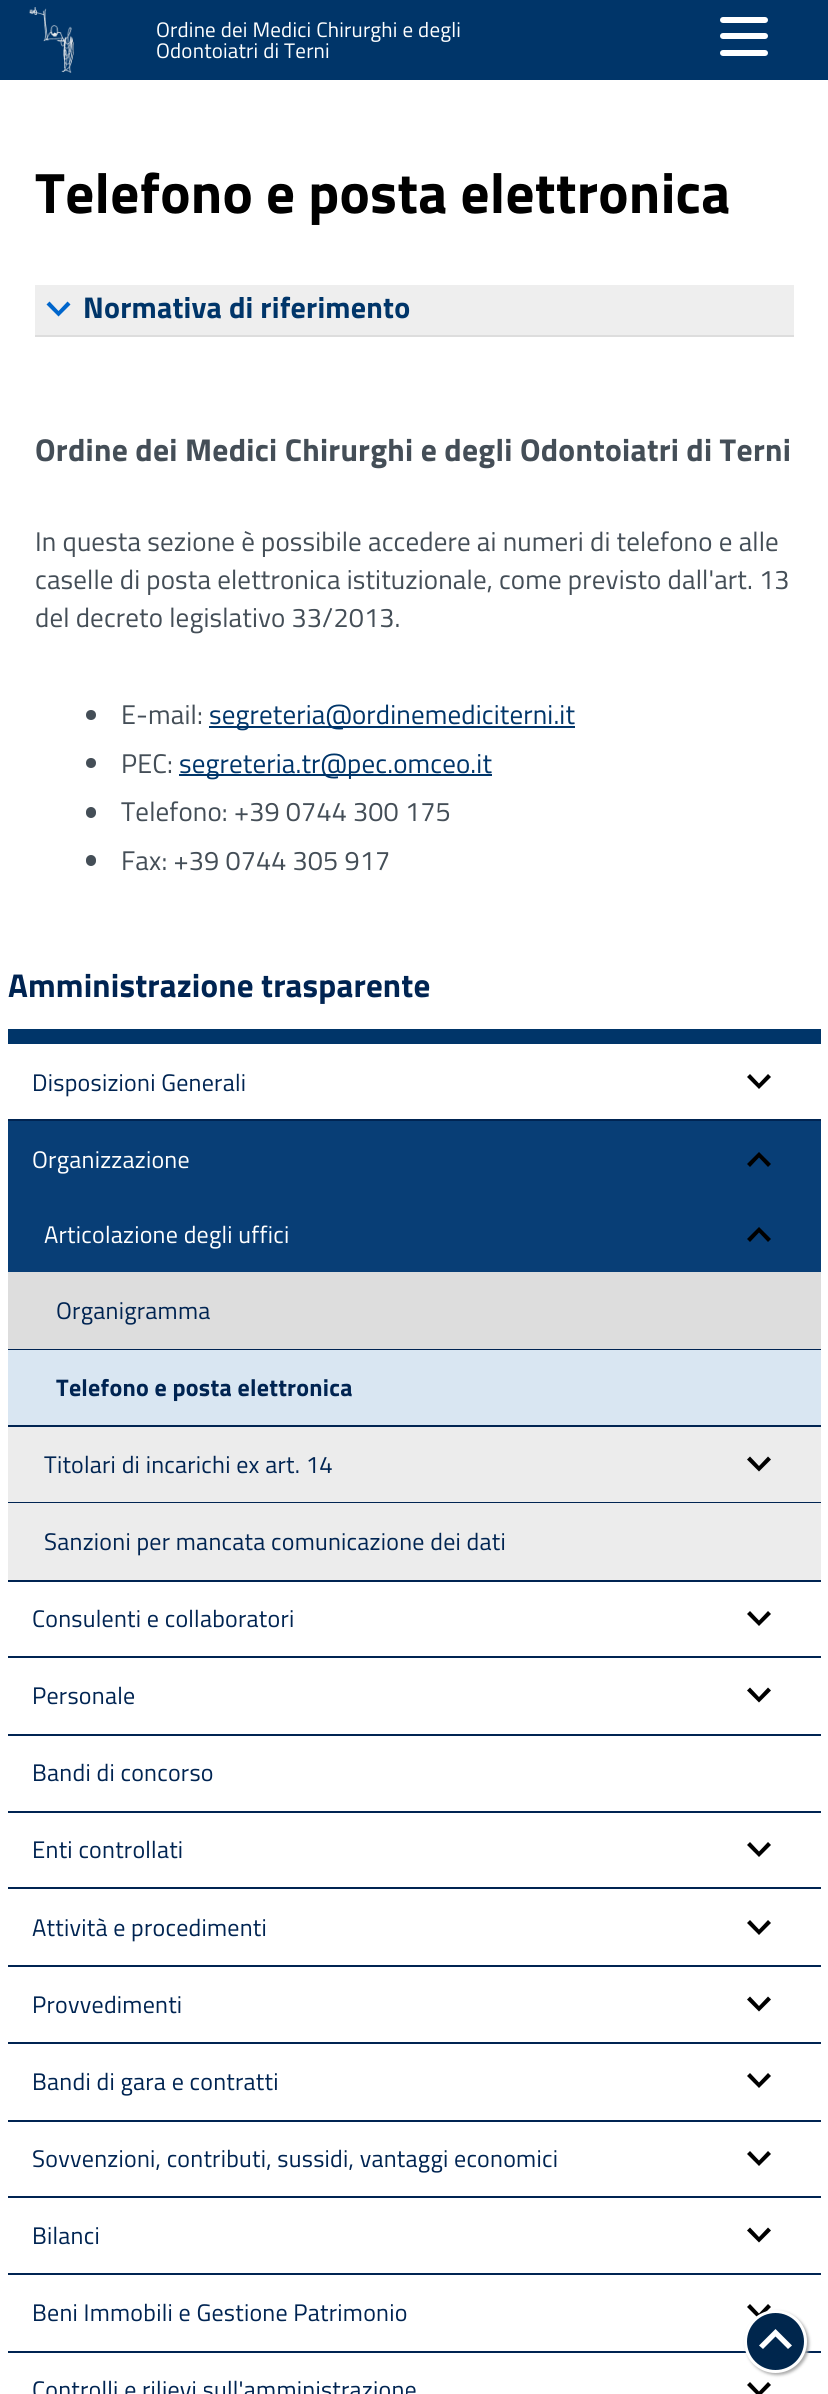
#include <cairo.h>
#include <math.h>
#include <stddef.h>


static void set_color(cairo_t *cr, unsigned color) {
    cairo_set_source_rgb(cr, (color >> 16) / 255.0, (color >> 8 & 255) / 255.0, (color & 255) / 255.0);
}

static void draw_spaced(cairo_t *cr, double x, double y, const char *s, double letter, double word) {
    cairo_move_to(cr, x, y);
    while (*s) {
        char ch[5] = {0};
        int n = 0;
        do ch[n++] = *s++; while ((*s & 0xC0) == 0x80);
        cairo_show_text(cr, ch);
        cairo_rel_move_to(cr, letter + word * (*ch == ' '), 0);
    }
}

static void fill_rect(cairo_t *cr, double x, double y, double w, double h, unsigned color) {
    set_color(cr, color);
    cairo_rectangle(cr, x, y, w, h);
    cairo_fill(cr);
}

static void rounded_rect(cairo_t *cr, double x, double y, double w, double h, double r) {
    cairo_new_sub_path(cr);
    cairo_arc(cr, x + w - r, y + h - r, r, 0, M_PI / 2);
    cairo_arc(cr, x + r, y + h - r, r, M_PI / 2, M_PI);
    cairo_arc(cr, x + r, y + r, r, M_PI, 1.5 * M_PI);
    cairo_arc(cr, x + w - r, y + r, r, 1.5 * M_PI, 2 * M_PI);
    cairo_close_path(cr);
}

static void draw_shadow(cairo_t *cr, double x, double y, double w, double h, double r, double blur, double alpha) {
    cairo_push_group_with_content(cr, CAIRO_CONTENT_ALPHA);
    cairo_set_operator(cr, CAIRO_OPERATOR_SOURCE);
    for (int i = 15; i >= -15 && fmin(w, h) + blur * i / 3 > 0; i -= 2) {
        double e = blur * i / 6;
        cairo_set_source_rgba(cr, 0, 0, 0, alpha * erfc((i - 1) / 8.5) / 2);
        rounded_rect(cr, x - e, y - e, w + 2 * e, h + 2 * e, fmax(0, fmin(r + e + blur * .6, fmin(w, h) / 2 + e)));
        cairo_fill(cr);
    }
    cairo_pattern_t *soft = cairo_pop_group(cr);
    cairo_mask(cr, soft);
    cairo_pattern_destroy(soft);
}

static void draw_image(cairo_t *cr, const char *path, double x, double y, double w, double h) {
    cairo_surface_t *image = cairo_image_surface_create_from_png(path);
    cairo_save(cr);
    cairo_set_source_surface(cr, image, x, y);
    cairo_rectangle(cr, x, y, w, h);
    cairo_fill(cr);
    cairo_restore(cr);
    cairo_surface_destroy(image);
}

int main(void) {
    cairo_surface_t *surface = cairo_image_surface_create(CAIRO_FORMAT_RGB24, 828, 2394);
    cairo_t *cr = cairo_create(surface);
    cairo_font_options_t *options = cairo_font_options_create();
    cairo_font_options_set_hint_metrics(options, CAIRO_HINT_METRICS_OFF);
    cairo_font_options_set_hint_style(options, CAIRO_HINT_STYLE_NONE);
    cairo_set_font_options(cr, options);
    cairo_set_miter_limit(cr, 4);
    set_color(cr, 0xFFFFFF);
    cairo_paint(cr);
    fill_rect(cr, 0, 0, 828, 80, 0x003569);
    draw_image(cr, "assets/img1.png", 29, 7, 45, 66);
    cairo_select_font_face(cr, "Titillium Web", CAIRO_FONT_SLANT_NORMAL, CAIRO_FONT_WEIGHT_NORMAL);
    cairo_set_font_size(cr, 21);
    set_color(cr, 0xFFFFFF);
    draw_spaced(cr, 156, 37, "Ordine dei Medici Chirurghi e degli", 0.2, 0);
    draw_spaced(cr, 156, 58, "Odontoiatri di Terni", 0.2, 0);
    rounded_rect(cr, 720, 33, 48, 6, 3);
    cairo_fill(cr);
    rounded_rect(cr, 720, 17, 48, 6, 3);
    cairo_fill(cr);
    rounded_rect(cr, 720, 50, 48, 6, 3);
    cairo_fill(cr);
    cairo_select_font_face(cr, "Titillium Web", CAIRO_FONT_SLANT_NORMAL, CAIRO_FONT_WEIGHT_BOLD);
    cairo_set_font_size(cr, 57);
    set_color(cr, 0x000000);
    draw_spaced(cr, 35, 213, "Telefono e posta elettronica", 0.27, 0);
    fill_rect(cr, 35, 285, 759, 50, 0xEEEEEE);
    set_color(cr, 0x0066CC);
    cairo_new_path(cr);
    cairo_move_to(cr, 49.5, 301.5);
    cairo_line_to(cr, 46.5, 304.5);
    cairo_line_to(cr, 58.5, 316.5);
    cairo_line_to(cr, 70.5, 304.5);
    cairo_line_to(cr, 67.5, 301.5);
    cairo_line_to(cr, 58.5, 311);
    cairo_close_path(cr);
    cairo_fill(cr);
    fill_rect(cr, 35, 335, 759, 2, 0xDDDDDD);
    cairo_set_font_size(cr, 30);
    set_color(cr, 0x003569);
    draw_spaced(cr, 83, 318, "Normativa di riferimento", 0.2, 0);
    cairo_set_font_size(cr, 31.6);
    set_color(cr, 0x444E57);
    draw_spaced(cr, 35, 461, "Ordine dei Medici Chirurghi e degli Odontoiatri di Terni", 0.27, 0);
    cairo_select_font_face(cr, "Titillium Web", CAIRO_FONT_SLANT_NORMAL, CAIRO_FONT_WEIGHT_NORMAL);
    cairo_set_font_size(cr, 27);
    draw_spaced(cr, 35, 551, "In questa sezione è possibile accedere ai numeri di telefono e alle", 0.15, 0);
    draw_spaced(cr, 35, 589, "caselle di posta elettronica istituzionale, come previsto dall'art. 13", 0.15, 0);
    draw_spaced(cr, 35, 627, "del decreto legislativo 33/2013.", 0.15, 0);
    cairo_new_path(cr);
    cairo_arc(cr, 91, 715, 5, 0, 2 * M_PI);
    cairo_fill(cr);
    draw_spaced(cr, 121, 724, "E-mail:", 0.15, 0);
    fill_rect(cr, 209, 726, 366, 2, 0x003569);
    draw_spaced(cr, 209, 724, "segreteria@ordinemediciterni.it", 0.15, 0);
    set_color(cr, 0x444E57);
    cairo_new_path(cr);
    cairo_arc(cr, 91, 763, 5, 0, 2 * M_PI);
    cairo_fill(cr);
    draw_spaced(cr, 121, 773, "PEC:", 0.15, 0);
    fill_rect(cr, 179, 774, 313, 2, 0x003569);
    draw_spaced(cr, 179, 773, "segreteria.tr@pec.omceo.it", 0.15, 0);
    set_color(cr, 0x444E57);
    rounded_rect(cr, 86, 807, 10, 11, 5);
    cairo_fill(cr);
    draw_spaced(cr, 121, 821, "Telefono: +39 0744 300 175", 0.15, 0);
    rounded_rect(cr, 86, 855, 10, 11, 5);
    cairo_fill(cr);
    draw_spaced(cr, 121, 870, "Fax: +39 0744 305 917", 0.15, 0);
    fill_rect(cr, 8, 1029, 813, 15, 0x003569);
    cairo_select_font_face(cr, "Titillium Web", CAIRO_FONT_SLANT_NORMAL, CAIRO_FONT_WEIGHT_BOLD);
    cairo_set_font_size(cr, 33);
    set_color(cr, 0x002452);
    draw_spaced(cr, 8, 997, "Amministrazione trasparente", 0.15, 0);
    cairo_select_font_face(cr, "Titillium Web", CAIRO_FONT_SLANT_NORMAL, CAIRO_FONT_WEIGHT_NORMAL);
    cairo_set_font_size(cr, 24);
    draw_spaced(cr, 32, 1091, "Disposizioni Generali", 0.25, 0);
    set_color(cr, 0x000000);
    cairo_new_path(cr);
    cairo_move_to(cr, 750, 1074);
    cairo_line_to(cr, 747, 1077);
    cairo_line_to(cr, 759, 1089);
    cairo_line_to(cr, 771, 1077);
    cairo_line_to(cr, 768, 1074);
    cairo_line_to(cr, 759, 1083.5);
    cairo_close_path(cr);
    cairo_fill(cr);
    fill_rect(cr, 8, 1119, 813, 2, 0x002452);
    fill_rect(cr, 8, 1121, 813, 151, 0x083E76);
    set_color(cr, 0xFFFFFF);
    draw_spaced(cr, 32, 1168, "Organizzazione", 0.25, 0);
    set_color(cr, 0x000000);
    cairo_new_path(cr);
    cairo_move_to(cr, 768, 1167);
    cairo_line_to(cr, 771, 1164);
    cairo_line_to(cr, 759, 1152);
    cairo_line_to(cr, 747, 1164);
    cairo_line_to(cr, 750, 1167);
    cairo_line_to(cr, 759, 1157.5);
    cairo_close_path(cr);
    cairo_fill(cr);
    set_color(cr, 0xFFFFFF);
    draw_spaced(cr, 44, 1243, "Articolazione degli uffici", 0.25, 0);
    set_color(cr, 0x000000);
    cairo_new_path(cr);
    cairo_move_to(cr, 768, 1242);
    cairo_line_to(cr, 771, 1239);
    cairo_line_to(cr, 759, 1227);
    cairo_line_to(cr, 747, 1239);
    cairo_line_to(cr, 750, 1242);
    cairo_line_to(cr, 759, 1232.5);
    cairo_close_path(cr);
    cairo_fill(cr);
    fill_rect(cr, 8, 1272, 813, 77, 0xDDDDDD);
    set_color(cr, 0x002452);
    draw_spaced(cr, 56, 1319, "Organigramma", 0.25, 0);
    fill_rect(cr, 8, 1349, 813, 1, 0x002452);
    fill_rect(cr, 8, 1350, 813, 75, 0xD9E6F2);
    cairo_select_font_face(cr, "Titillium Web", CAIRO_FONT_SLANT_NORMAL, CAIRO_FONT_WEIGHT_BOLD);
    set_color(cr, 0x002452);
    draw_spaced(cr, 56, 1396, "Telefono e posta elettronica", 0.25, 0);
    fill_rect(cr, 8, 1425, 813, 2, 0x002452);
    fill_rect(cr, 8, 1427, 813, 75, 0xECECEC);
    cairo_select_font_face(cr, "Titillium Web", CAIRO_FONT_SLANT_NORMAL, CAIRO_FONT_WEIGHT_NORMAL);
    set_color(cr, 0x002452);
    draw_spaced(cr, 44, 1473, "Titolari di incarichi ex art. 14", 0.25, 0);
    set_color(cr, 0x000000);
    cairo_new_path(cr);
    cairo_move_to(cr, 750, 1456.5);
    cairo_line_to(cr, 747, 1459.5);
    cairo_line_to(cr, 759, 1471.5);
    cairo_line_to(cr, 771, 1459.5);
    cairo_line_to(cr, 768, 1456.5);
    cairo_line_to(cr, 759, 1466);
    cairo_close_path(cr);
    cairo_fill(cr);
    fill_rect(cr, 8, 1502, 813, 1, 0x002452);
    fill_rect(cr, 8, 1503, 813, 77, 0xECECEC);
    set_color(cr, 0x002452);
    draw_spaced(cr, 44, 1550, "Sanzioni per mancata comunicazione dei dati", 0.25, 0);
    fill_rect(cr, 8, 1580, 813, 2, 0x002452);
    draw_spaced(cr, 32, 1627, "Consulenti e collaboratori", 0.25, 0);
    set_color(cr, 0x000000);
    cairo_new_path(cr);
    cairo_move_to(cr, 750, 1611);
    cairo_line_to(cr, 747, 1614);
    cairo_line_to(cr, 759, 1626);
    cairo_line_to(cr, 771, 1614);
    cairo_line_to(cr, 768, 1611);
    cairo_line_to(cr, 759, 1620.5);
    cairo_close_path(cr);
    cairo_fill(cr);
    fill_rect(cr, 8, 1656, 813, 2, 0x002452);
    draw_spaced(cr, 32, 1704, "Personale", 0.25, 0);
    set_color(cr, 0x000000);
    cairo_new_path(cr);
    cairo_move_to(cr, 750, 1687.5);
    cairo_line_to(cr, 747, 1690.5);
    cairo_line_to(cr, 759, 1702.5);
    cairo_line_to(cr, 771, 1690.5);
    cairo_line_to(cr, 768, 1687.5);
    cairo_line_to(cr, 759, 1697);
    cairo_close_path(cr);
    cairo_fill(cr);
    fill_rect(cr, 8, 1734, 813, 2, 0x002452);
    draw_spaced(cr, 32, 1781, "Bandi di concorso", 0.25, 0);
    fill_rect(cr, 8, 1811, 813, 2, 0x002452);
    draw_spaced(cr, 32, 1858, "Enti controllati", 0.25, 0);
    set_color(cr, 0x000000);
    cairo_new_path(cr);
    cairo_move_to(cr, 750, 1842);
    cairo_line_to(cr, 747, 1845);
    cairo_line_to(cr, 759, 1857);
    cairo_line_to(cr, 771, 1845);
    cairo_line_to(cr, 768, 1842);
    cairo_line_to(cr, 759, 1851.5);
    cairo_close_path(cr);
    cairo_fill(cr);
    fill_rect(cr, 8, 1887, 813, 2, 0x002452);
    draw_spaced(cr, 32, 1936, "Attività e procedimenti", 0.25, 0);
    set_color(cr, 0x000000);
    cairo_new_path(cr);
    cairo_move_to(cr, 750, 1920);
    cairo_line_to(cr, 747, 1923);
    cairo_line_to(cr, 759, 1935);
    cairo_line_to(cr, 771, 1923);
    cairo_line_to(cr, 768, 1920);
    cairo_line_to(cr, 759, 1929.5);
    cairo_close_path(cr);
    cairo_fill(cr);
    fill_rect(cr, 8, 1965, 813, 2, 0x002452);
    draw_spaced(cr, 32, 2013, "Provvedimenti", 0.25, 0);
    set_color(cr, 0x000000);
    cairo_new_path(cr);
    cairo_move_to(cr, 750, 1996.5);
    cairo_line_to(cr, 747, 1999.5);
    cairo_line_to(cr, 759, 2011.5);
    cairo_line_to(cr, 771, 1999.5);
    cairo_line_to(cr, 768, 1996.5);
    cairo_line_to(cr, 759, 2006);
    cairo_close_path(cr);
    cairo_fill(cr);
    fill_rect(cr, 8, 2042, 813, 2, 0x002452);
    draw_spaced(cr, 32, 2090, "Bandi di gara e contratti", 0.25, 0);
    set_color(cr, 0x000000);
    cairo_new_path(cr);
    cairo_move_to(cr, 750, 2073);
    cairo_line_to(cr, 747, 2076);
    cairo_line_to(cr, 759, 2088);
    cairo_line_to(cr, 771, 2076);
    cairo_line_to(cr, 768, 2073);
    cairo_line_to(cr, 759, 2082.5);
    cairo_close_path(cr);
    cairo_fill(cr);
    fill_rect(cr, 8, 2120, 813, 2, 0x002452);
    draw_spaced(cr, 32, 2167, "Sovvenzioni, contributi, sussidi, vantaggi economici", 0.25, 0);
    set_color(cr, 0x000000);
    cairo_new_path(cr);
    cairo_move_to(cr, 750, 2151);
    cairo_line_to(cr, 747, 2154);
    cairo_line_to(cr, 759, 2166);
    cairo_line_to(cr, 771, 2154);
    cairo_line_to(cr, 768, 2151);
    cairo_line_to(cr, 759, 2160.5);
    cairo_close_path(cr);
    cairo_fill(cr);
    fill_rect(cr, 8, 2196, 813, 2, 0x002452);
    draw_spaced(cr, 32, 2244, "Bilanci", 0.25, 0);
    set_color(cr, 0x000000);
    cairo_new_path(cr);
    cairo_move_to(cr, 750, 2227.5);
    cairo_line_to(cr, 747, 2230.5);
    cairo_line_to(cr, 759, 2242.5);
    cairo_line_to(cr, 771, 2230.5);
    cairo_line_to(cr, 768, 2227.5);
    cairo_line_to(cr, 759, 2237);
    cairo_close_path(cr);
    cairo_fill(cr);
    fill_rect(cr, 8, 2273, 813, 2, 0x002452);
    draw_spaced(cr, 32, 2321, "Beni Immobili e Gestione Patrimonio", 0.25, 0);
    set_color(cr, 0x000000);
    cairo_new_path(cr);
    cairo_move_to(cr, 750, 2304);
    cairo_line_to(cr, 747, 2307);
    cairo_line_to(cr, 759, 2319);
    cairo_line_to(cr, 771, 2307);
    cairo_line_to(cr, 768, 2304);
    cairo_line_to(cr, 759, 2313.5);
    cairo_close_path(cr);
    cairo_fill(cr);
    fill_rect(cr, 8, 2351, 813, 2, 0x002452);
    draw_spaced(cr, 32, 2398, "Controlli e rilievi sull'amministrazione", 0.25, 0);
    set_color(cr, 0x000000);
    cairo_new_path(cr);
    cairo_move_to(cr, 750, 2382);
    cairo_line_to(cr, 747, 2385);
    cairo_line_to(cr, 759, 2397);
    cairo_line_to(cr, 771, 2385);
    cairo_line_to(cr, 768, 2382);
    cairo_line_to(cr, 759, 2391.5);
    cairo_close_path(cr);
    cairo_fill(cr);
    set_color(cr, 0xAAAAAA);
    draw_shadow(cr, 746, 2312, 63, 63, 31.5, 1.5, 1);
    set_color(cr, 0x00264D);
    cairo_arc(cr, 775.5, 2341.5, 30, 0, 2 * M_PI);
    cairo_fill_preserve(cr);
    set_color(cr, 0xFFFFFF);
    cairo_set_line_width(cr, 3);
    cairo_stroke(cr);
    cairo_new_path(cr);
    cairo_move_to(cr, 788, 2349);
    cairo_line_to(cr, 792, 2345.5);
    cairo_line_to(cr, 775.5, 2329);
    cairo_line_to(cr, 759, 2345.5);
    cairo_line_to(cr, 763, 2349);
    cairo_line_to(cr, 775.5, 2336.5);
    cairo_close_path(cr);
    cairo_fill(cr);
    cairo_surface_write_to_png(surface, "output.png");
    cairo_font_options_destroy(options);
    cairo_destroy(cr);
    cairo_surface_destroy(surface);
    return 0;
}
